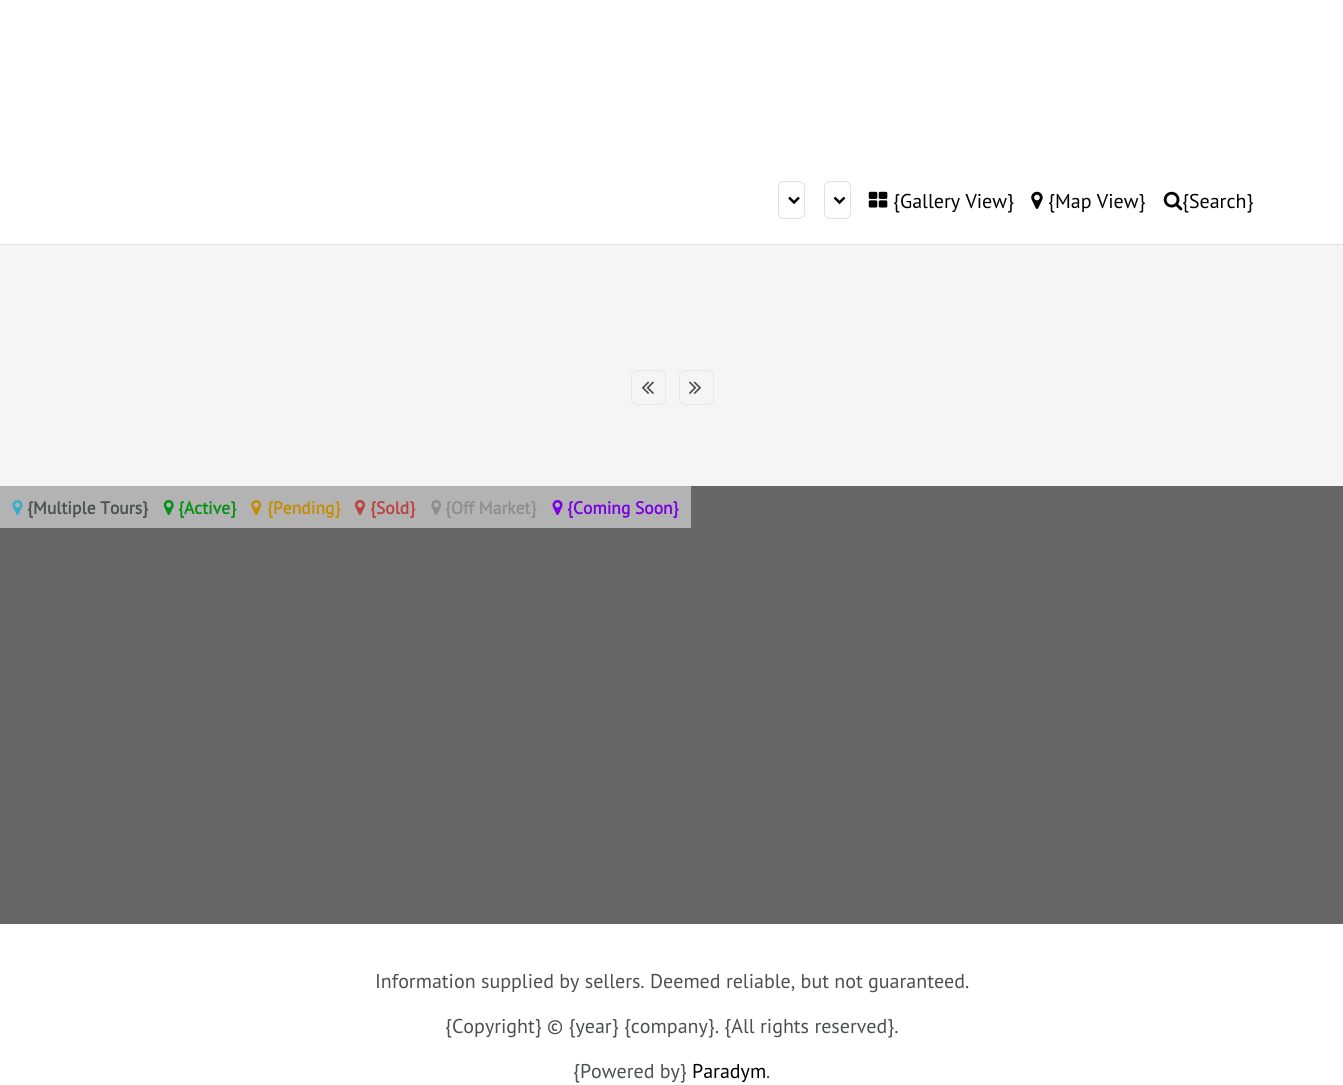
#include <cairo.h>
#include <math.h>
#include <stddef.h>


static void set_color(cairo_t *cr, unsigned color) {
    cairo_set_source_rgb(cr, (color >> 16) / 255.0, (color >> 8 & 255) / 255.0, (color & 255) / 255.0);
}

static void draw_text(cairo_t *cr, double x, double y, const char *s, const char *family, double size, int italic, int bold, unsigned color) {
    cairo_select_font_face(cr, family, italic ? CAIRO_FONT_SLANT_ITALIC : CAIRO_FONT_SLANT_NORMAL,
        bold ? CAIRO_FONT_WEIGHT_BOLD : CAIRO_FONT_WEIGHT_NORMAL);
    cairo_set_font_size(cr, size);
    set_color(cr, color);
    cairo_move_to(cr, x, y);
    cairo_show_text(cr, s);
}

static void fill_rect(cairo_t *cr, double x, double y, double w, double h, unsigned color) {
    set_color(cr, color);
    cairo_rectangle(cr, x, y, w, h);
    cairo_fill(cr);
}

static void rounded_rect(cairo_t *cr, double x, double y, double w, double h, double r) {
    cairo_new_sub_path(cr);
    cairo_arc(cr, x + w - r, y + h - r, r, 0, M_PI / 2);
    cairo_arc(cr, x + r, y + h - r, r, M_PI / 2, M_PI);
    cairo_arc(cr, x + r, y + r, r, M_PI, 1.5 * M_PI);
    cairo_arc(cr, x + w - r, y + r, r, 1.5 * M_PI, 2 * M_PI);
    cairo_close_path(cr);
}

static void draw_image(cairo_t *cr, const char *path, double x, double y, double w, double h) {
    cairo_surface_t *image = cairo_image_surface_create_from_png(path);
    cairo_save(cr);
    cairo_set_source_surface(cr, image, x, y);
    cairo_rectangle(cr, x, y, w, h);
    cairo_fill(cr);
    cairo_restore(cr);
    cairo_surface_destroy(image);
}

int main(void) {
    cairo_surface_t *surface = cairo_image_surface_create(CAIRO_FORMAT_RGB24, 1343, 1085);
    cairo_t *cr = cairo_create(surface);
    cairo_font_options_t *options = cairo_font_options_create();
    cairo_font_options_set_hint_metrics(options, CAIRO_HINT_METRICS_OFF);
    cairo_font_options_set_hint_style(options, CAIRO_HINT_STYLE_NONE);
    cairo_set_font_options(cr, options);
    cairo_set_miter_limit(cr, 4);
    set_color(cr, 0xFFFFFF);
    cairo_paint(cr);
    fill_rect(cr, 0, 244, 1343, 1, 0xE1E1E1);
    rounded_rect(cr, 778.5, 181.5, 26, 37, 5.5);
    cairo_set_line_width(cr, 1);
    cairo_stroke(cr);
    cairo_new_path(cr);
    cairo_move_to(cr, 789, 197.5);
    cairo_line_to(cr, 794, 202.5);
    cairo_line_to(cr, 799, 197.5);
    set_color(cr, 0x000000);
    cairo_set_line_width(cr, 2.5);
    cairo_stroke(cr);
    rounded_rect(cr, 824.5, 181.5, 26, 37, 5.5);
    set_color(cr, 0xE1E1E1);
    cairo_set_line_width(cr, 1);
    cairo_stroke(cr);
    cairo_new_path(cr);
    cairo_move_to(cr, 834.5, 197.5);
    cairo_line_to(cr, 839.5, 202.5);
    cairo_line_to(cr, 844.5, 197.5);
    set_color(cr, 0x000000);
    cairo_set_line_width(cr, 2.5);
    cairo_stroke(cr);
    draw_image(cr, "assets/img1.png", 868, 191, 20, 17);
    draw_text(cr, 893, 208, "{Gallery View}", "PT Sans", 20, 0, 0, 0x000000);
    draw_image(cr, "assets/img2.png", 1031, 191, 12, 18);
    draw_text(cr, 1048, 208, "{Map View}", "PT Sans", 20, 0, 0, 0x000000);
    draw_image(cr, "assets/img3.png", 1163, 191, 20, 20);
    draw_text(cr, 1182, 208, "{Search}", "PT Sans", 20, 0, 0, 0x000000);
    fill_rect(cr, 0, 245, 1343, 241, 0xF5F5F5);
    rounded_rect(cr, 631.5, 370.5, 34, 34, 5.5);
    set_color(cr, 0xE6E6E6);
    cairo_set_line_width(cr, 1);
    cairo_stroke(cr);
    draw_image(cr, "assets/img4.png", 641, 381, 13, 13);
    rounded_rect(cr, 679.5, 370.5, 34, 34, 5.5);
    cairo_stroke(cr);
    draw_image(cr, "assets/img5.png", 689, 381, 12, 13);
    fill_rect(cr, 0, 486, 1343, 438, 0x666666);
    fill_rect(cr, 0, 486, 691, 42, 0xB3B3B3);
    draw_image(cr, "assets/img6.png", 12, 500, 11, 15);
    draw_text(cr, 27, 514, "{Multiple Tours}", "PT Sans", 17.5, 0, 1, 0x4B5052);
    draw_image(cr, "assets/img7.png", 163, 500, 11, 15);
    draw_text(cr, 178, 514, "{Active}", "PT Sans", 17.5, 0, 1, 0x049016);
    draw_image(cr, "assets/img8.png", 251, 500, 11, 15);
    draw_text(cr, 267, 514, "{Pending}", "PT Sans", 17.5, 0, 1, 0xC48C00);
    draw_image(cr, "assets/img9.png", 355, 500, 10, 15);
    draw_text(cr, 370, 514, "{Sold}", "PT Sans", 17.5, 0, 1, 0xBD4141);
    draw_image(cr, "assets/img10.png", 431, 500, 11, 15);
    draw_text(cr, 445, 514, "{Off Market}", "PT Sans", 17.5, 0, 1, 0x8E8E8E);
    draw_image(cr, "assets/img11.png", 552, 500, 11, 15);
    draw_text(cr, 567, 514, "{Coming Soon}", "PT Sans", 17.5, 0, 1, 0x7A00E4);
    draw_text(cr, 375, 988, "Information supplied by sellers. Deemed reliable, but not guaranteed.", "PT Sans", 20, 0, 0, 0x4B5052);
    draw_text(cr, 445, 1033, "{Copyright} © {year} {company}. {All rights reserved}.", "PT Sans", 20, 0, 0, 0x4B5052);
    draw_text(cr, 573, 1078, "{Powered by}", "PT Sans", 20, 0, 0, 0x4B5052);
    draw_text(cr, 692, 1078, "Paradym", "PT Sans", 20, 0, 0, 0x000000);
    draw_text(cr, 766, 1078, ".", "PT Sans", 20, 0, 0, 0x4B5052);
    cairo_surface_write_to_png(surface, "output.png");
    cairo_font_options_destroy(options);
    cairo_destroy(cr);
    cairo_surface_destroy(surface);
    return 0;
}
